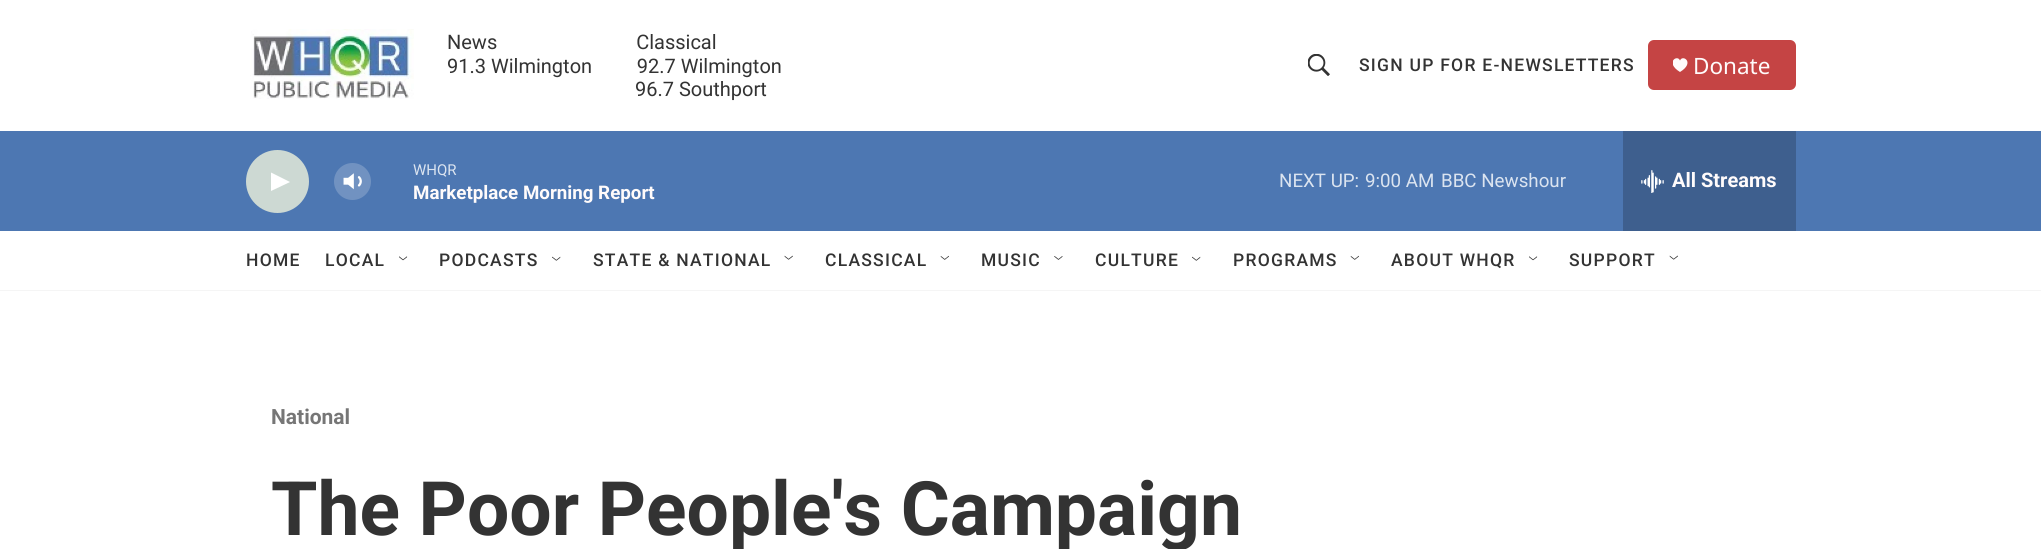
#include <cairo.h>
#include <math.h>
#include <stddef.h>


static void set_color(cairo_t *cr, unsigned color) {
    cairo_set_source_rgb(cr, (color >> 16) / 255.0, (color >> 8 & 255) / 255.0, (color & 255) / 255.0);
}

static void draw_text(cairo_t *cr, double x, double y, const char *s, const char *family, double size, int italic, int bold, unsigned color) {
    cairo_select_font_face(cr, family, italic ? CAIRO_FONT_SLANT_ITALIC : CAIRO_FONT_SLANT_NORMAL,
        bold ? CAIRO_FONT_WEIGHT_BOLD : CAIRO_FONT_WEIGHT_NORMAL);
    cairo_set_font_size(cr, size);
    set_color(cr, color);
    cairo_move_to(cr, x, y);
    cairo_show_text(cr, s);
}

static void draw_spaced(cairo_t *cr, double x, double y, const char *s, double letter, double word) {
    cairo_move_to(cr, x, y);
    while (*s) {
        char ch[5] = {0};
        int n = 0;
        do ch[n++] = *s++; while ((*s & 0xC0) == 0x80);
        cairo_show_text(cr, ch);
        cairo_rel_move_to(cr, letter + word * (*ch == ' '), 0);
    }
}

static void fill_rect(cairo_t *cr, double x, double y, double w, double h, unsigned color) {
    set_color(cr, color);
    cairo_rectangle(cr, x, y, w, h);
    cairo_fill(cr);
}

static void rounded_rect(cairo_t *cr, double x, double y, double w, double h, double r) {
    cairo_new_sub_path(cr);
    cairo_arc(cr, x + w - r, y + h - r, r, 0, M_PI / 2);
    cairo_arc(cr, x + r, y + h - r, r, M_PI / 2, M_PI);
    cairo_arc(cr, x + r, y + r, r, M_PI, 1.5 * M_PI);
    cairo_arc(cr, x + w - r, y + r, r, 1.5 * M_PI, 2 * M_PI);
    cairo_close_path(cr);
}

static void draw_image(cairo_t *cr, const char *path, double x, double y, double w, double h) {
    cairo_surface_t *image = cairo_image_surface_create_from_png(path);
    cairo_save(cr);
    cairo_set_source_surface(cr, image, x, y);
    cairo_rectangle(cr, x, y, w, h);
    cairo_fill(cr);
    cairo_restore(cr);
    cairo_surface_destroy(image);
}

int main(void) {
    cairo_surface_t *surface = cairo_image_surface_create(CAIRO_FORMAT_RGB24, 2041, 549);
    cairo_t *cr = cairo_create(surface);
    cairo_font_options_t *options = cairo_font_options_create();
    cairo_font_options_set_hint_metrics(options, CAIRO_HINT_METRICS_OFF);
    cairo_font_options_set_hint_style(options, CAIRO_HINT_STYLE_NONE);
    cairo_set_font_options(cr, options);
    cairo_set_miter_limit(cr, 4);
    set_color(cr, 0xFFFFFF);
    cairo_paint(cr);
    fill_rect(cr, 0, 290, 2041, 1, 0xF5F5F5);
    draw_image(cr, "assets/img1.png", 250, 29, 164, 70);
    draw_text(cr, 447, 49, "News                            Classical", "Roboto", 20, 0, 0, 0x333333);
    draw_text(cr, 447, 73, "91.3 Wilmington         92.7 Wilmington", "Roboto", 20, 0, 0, 0x333333);
    draw_text(cr, 635, 96, "96.7 Southport", "Roboto", 20, 0, 0, 0x333333);
    draw_image(cr, "assets/img2.png", 1308, 54, 22, 22);
    cairo_select_font_face(cr, "Roboto Medium", CAIRO_FONT_SLANT_NORMAL, CAIRO_FONT_WEIGHT_NORMAL);
    cairo_set_font_size(cr, 17.5);
    draw_spaced(cr, 1359, 71, "SIGN UP FOR E-NEWSLETTERS", 1.25, 0);
    set_color(cr, 0xC54444);
    rounded_rect(cr, 1648, 40, 148, 50, 6);
    cairo_fill(cr);
    cairo_save(cr);
    cairo_rectangle(cr, 1673, 58, 15, 15);
    cairo_clip(cr);
    set_color(cr, 0xFFFBFB);
    cairo_new_path(cr);
    cairo_move_to(cr, 1680, 60.5);
    cairo_curve_to(cr, 1677.5, 54, 1664.5, 62.5, 1680, 72);
    cairo_curve_to(cr, 1695.5, 62.5, 1682.5, 54, 1680, 60.5);
    cairo_close_path(cr);
    cairo_fill(cr);
    cairo_restore(cr);
    draw_text(cr, 1693, 74, "Donate", "Noto Sans", 22.5, 0, 0, 0xFFFBFB);
    fill_rect(cr, 0, 131, 2041, 100, 0x4D77B2);
    set_color(cr, 0xCDD9D3);
    cairo_new_path(cr);
    cairo_arc(cr, 277.5, 181.5, 31.5, 0, 2 * M_PI);
    cairo_fill(cr);
    set_color(cr, 0xFFFFFF);
    cairo_new_path(cr);
    cairo_move_to(cr, 271, 172.5);
    cairo_line_to(cr, 290, 182);
    cairo_line_to(cr, 271, 191);
    cairo_close_path(cr);
    cairo_fill(cr);
    draw_image(cr, "assets/img3.png", 343, 173, 19, 17);
    cairo_set_source_rgba(cr, 1, 1, 1, 0.2);
    cairo_arc(cr, 352.5, 181.5, 18.5, 0, 2 * M_PI);
    cairo_fill(cr);
    draw_text(cr, 413, 175, "WHQR", "Roboto", 15, 0, 0, 0xDBE4F0);
    draw_text(cr, 413, 199, "Marketplace Morning Report", "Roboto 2", 18.75, 0, 1, 0xFFFBFB);
    draw_text(cr, 1279, 187, "NEXT UP:", "Roboto", 18.75, 0, 0, 0xDBE4F0);
    draw_text(cr, 1365, 187, "9:00 AM", "Roboto", 18.75, 0, 0, 0xDBE4F0);
    draw_text(cr, 1441, 187, "BBC Newshour", "Roboto", 18.75, 0, 0, 0xDBE4F0);
    fill_rect(cr, 1623, 131, 173, 100, 0x3E5F8E);
    draw_image(cr, "assets/img4.png", 1641, 170, 23, 23);
    draw_text(cr, 1672, 187, "All Streams", "Roboto 2", 20, 0, 1, 0xFFFBFB);
    cairo_select_font_face(cr, "Roboto Medium", CAIRO_FONT_SLANT_NORMAL, CAIRO_FONT_WEIGHT_NORMAL);
    cairo_set_font_size(cr, 17.5);
    set_color(cr, 0x333333);
    draw_spaced(cr, 246, 266, "HOME", 1.25, 0);
    draw_spaced(cr, 325, 266, "LOCAL", 1.25, 0);
    draw_image(cr, "assets/img5.png", 399, 256, 9, 5);
    draw_spaced(cr, 439, 266, "PODCASTS", 1.25, 0);
    draw_image(cr, "assets/img6.png", 552, 256, 9, 5);
    draw_spaced(cr, 593, 266, "STATE & NATIONAL", 1.25, 0);
    draw_image(cr, "assets/img7.png", 784, 255, 9, 5);
    draw_spaced(cr, 825, 266, "CLASSICAL", 1.25, 0);
    draw_image(cr, "assets/img8.png", 940, 255, 9, 5);
    draw_spaced(cr, 981, 266, "MUSIC", 1.25, 0);
    draw_image(cr, "assets/img9.png", 1054, 256, 9, 4);
    draw_spaced(cr, 1095, 266, "CULTURE", 1.25, 0);
    draw_image(cr, "assets/img10.png", 1192, 256, 9, 5);
    draw_spaced(cr, 1233, 266, "PROGRAMS", 1.25, 0);
    draw_image(cr, "assets/img11.png", 1350, 255, 9, 5);
    draw_spaced(cr, 1391, 266, "ABOUT WHQR", 1.25, 0);
    draw_image(cr, "assets/img12.png", 1529, 256, 9, 5);
    draw_spaced(cr, 1569, 266, "SUPPORT", 1.25, 0);
    draw_image(cr, "assets/img13.png", 1669, 255, 9, 5);
    draw_text(cr, 271, 424, "National", "Roboto", 21, 0, 1, 0x767676);
    draw_text(cr, 271, 535, "The Poor People's Campaign", "Roboto", 75, 0, 1, 0x333333);
    cairo_surface_write_to_png(surface, "output.png");
    cairo_font_options_destroy(options);
    cairo_destroy(cr);
    cairo_surface_destroy(surface);
    return 0;
}
